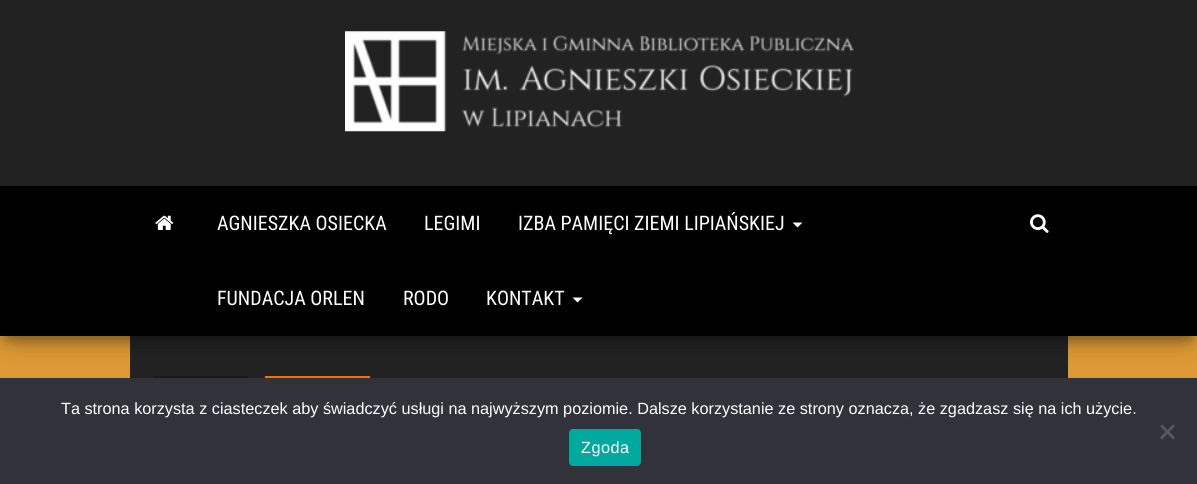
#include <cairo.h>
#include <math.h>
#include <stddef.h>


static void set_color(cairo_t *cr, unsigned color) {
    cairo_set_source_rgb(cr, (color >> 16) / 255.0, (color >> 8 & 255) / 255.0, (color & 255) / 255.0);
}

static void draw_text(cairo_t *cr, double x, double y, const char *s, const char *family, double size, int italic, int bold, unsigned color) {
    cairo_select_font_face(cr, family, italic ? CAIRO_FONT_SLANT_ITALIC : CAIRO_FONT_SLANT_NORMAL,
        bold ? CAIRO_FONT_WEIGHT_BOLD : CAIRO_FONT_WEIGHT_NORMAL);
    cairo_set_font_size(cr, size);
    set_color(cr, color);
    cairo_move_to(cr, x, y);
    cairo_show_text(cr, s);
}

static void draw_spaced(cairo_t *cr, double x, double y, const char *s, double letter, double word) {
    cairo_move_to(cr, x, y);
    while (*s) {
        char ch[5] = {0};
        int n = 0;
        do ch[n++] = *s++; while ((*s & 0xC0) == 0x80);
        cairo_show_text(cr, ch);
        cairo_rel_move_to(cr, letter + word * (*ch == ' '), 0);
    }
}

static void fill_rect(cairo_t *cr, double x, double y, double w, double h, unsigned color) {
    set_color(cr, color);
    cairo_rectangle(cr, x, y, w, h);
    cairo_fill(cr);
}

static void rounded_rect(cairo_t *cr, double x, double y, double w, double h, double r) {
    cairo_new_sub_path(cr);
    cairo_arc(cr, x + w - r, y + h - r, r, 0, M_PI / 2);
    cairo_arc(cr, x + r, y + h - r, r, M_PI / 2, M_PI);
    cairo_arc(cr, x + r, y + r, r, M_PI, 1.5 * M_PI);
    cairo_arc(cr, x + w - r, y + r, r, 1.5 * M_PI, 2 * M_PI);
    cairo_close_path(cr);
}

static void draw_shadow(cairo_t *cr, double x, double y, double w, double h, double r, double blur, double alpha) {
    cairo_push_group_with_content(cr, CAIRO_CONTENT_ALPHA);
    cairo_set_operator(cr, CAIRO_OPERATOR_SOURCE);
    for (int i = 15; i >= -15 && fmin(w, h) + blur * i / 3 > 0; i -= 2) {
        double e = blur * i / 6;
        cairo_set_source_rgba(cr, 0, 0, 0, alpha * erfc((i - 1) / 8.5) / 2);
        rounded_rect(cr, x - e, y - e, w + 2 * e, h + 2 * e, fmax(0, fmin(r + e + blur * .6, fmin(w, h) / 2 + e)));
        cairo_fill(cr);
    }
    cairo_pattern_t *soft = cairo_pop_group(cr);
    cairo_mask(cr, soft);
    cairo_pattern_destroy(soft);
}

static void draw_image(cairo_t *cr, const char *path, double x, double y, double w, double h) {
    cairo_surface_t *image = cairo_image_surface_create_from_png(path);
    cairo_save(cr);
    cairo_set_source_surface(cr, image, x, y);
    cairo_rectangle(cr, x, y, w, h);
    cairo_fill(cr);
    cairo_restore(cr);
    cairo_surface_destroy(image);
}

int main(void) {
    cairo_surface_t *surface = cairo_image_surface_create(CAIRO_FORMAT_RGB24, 1197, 484);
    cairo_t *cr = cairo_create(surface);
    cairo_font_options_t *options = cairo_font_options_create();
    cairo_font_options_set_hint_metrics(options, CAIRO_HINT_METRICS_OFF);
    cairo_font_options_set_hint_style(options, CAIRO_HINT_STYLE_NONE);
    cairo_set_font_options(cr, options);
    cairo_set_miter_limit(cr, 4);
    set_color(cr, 0xDD9933);
    cairo_paint(cr);
    fill_rect(cr, 0, 0, 1197, 186, 0x222222);
    draw_image(cr, "assets/img1.png", 345, 31, 509, 101);
    fill_rect(cr, 130, 336, 938, 42, 0x222222);
    set_color(cr, 0x000000);
    draw_shadow(cr, 6, 203, 1185, 137, 0, 6, 0.2);
    draw_shadow(cr, 0, 190, 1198, 150, 0, 12.5, 0.12);
    draw_shadow(cr, 15, 214, 1168, 120, 0, 12.5, 0.42);
    fill_rect(cr, 0, 186, 1197, 150, 0x000000);
    draw_image(cr, "assets/img2.png", 155, 215, 19, 15);
    draw_text(cr, 217, 230, "AGNIESZKA OSIECKA", "Roboto Condensed", 20, 0, 0, 0xFFFFFF);
    draw_text(cr, 424, 230, "LEGIMI", "Roboto Condensed", 20, 0, 0, 0xFFFFFF);
    draw_text(cr, 518, 230, "IZBA PAMIĘCI ZIEMI LIPIAŃSKIEJ", "Roboto Condensed", 20, 0, 0, 0xFFFFFF);
    cairo_new_path(cr);
    cairo_move_to(cr, 792.5, 222.5);
    cairo_line_to(cr, 802.5, 222.5);
    cairo_line_to(cr, 797.5, 227.5);
    cairo_close_path(cr);
    cairo_fill(cr);
    draw_text(cr, 217, 305, "FUNDACJA ORLEN", "Roboto Condensed", 20, 0, 0, 0xFFFFFF);
    draw_text(cr, 403, 305, "RODO", "Roboto Condensed", 20, 0, 0, 0xFFFFFF);
    draw_text(cr, 486, 305, "KONTAKT", "Roboto Condensed", 20, 0, 0, 0xFFFFFF);
    cairo_new_path(cr);
    cairo_move_to(cr, 572.5, 297.5);
    cairo_line_to(cr, 582.5, 297.5);
    cairo_line_to(cr, 577.5, 302.5);
    cairo_close_path(cr);
    cairo_fill(cr);
    draw_image(cr, "assets/img3.png", 1030, 214, 19, 19);
    fill_rect(cr, 154, 376, 94, 2, 0x191919);
    fill_rect(cr, 265, 376, 105, 2, 0xF27300);
    fill_rect(cr, 0, 378, 1197, 106, 0x32323A);
    draw_text(cr, 61, 414, "Ta strona korzysta z ciasteczek aby świadczyć usługi na najwyższym poziomie. Dalsze korzystanie ze strony oznacza, że zgadzasz się na ich użycie.", "Liberation Sans", 16.25, 0, 0, 0xFFFFFF);
    set_color(cr, 0x59595D);
    cairo_new_path(cr);
    cairo_move_to(cr, 1173, 424.5);
    cairo_line_to(cr, 1175, 426);
    cairo_line_to(cr, 1162, 439.5);
    cairo_line_to(cr, 1160, 437.5);
    cairo_close_path(cr);
    cairo_fill(cr);
    cairo_new_path(cr);
    cairo_move_to(cr, 1160, 426);
    cairo_line_to(cr, 1162, 424.5);
    cairo_line_to(cr, 1175, 437.5);
    cairo_line_to(cr, 1173, 439.5);
    cairo_close_path(cr);
    cairo_fill(cr);
    set_color(cr, 0x00A99D);
    rounded_rect(cr, 569, 429, 72, 37, 4);
    cairo_fill(cr);
    set_color(cr, 0xFFFFFF);
    draw_spaced(cr, 581, 453, "Zgoda", 0.5, 0);
    cairo_surface_write_to_png(surface, "output.png");
    cairo_font_options_destroy(options);
    cairo_destroy(cr);
    cairo_surface_destroy(surface);
    return 0;
}
